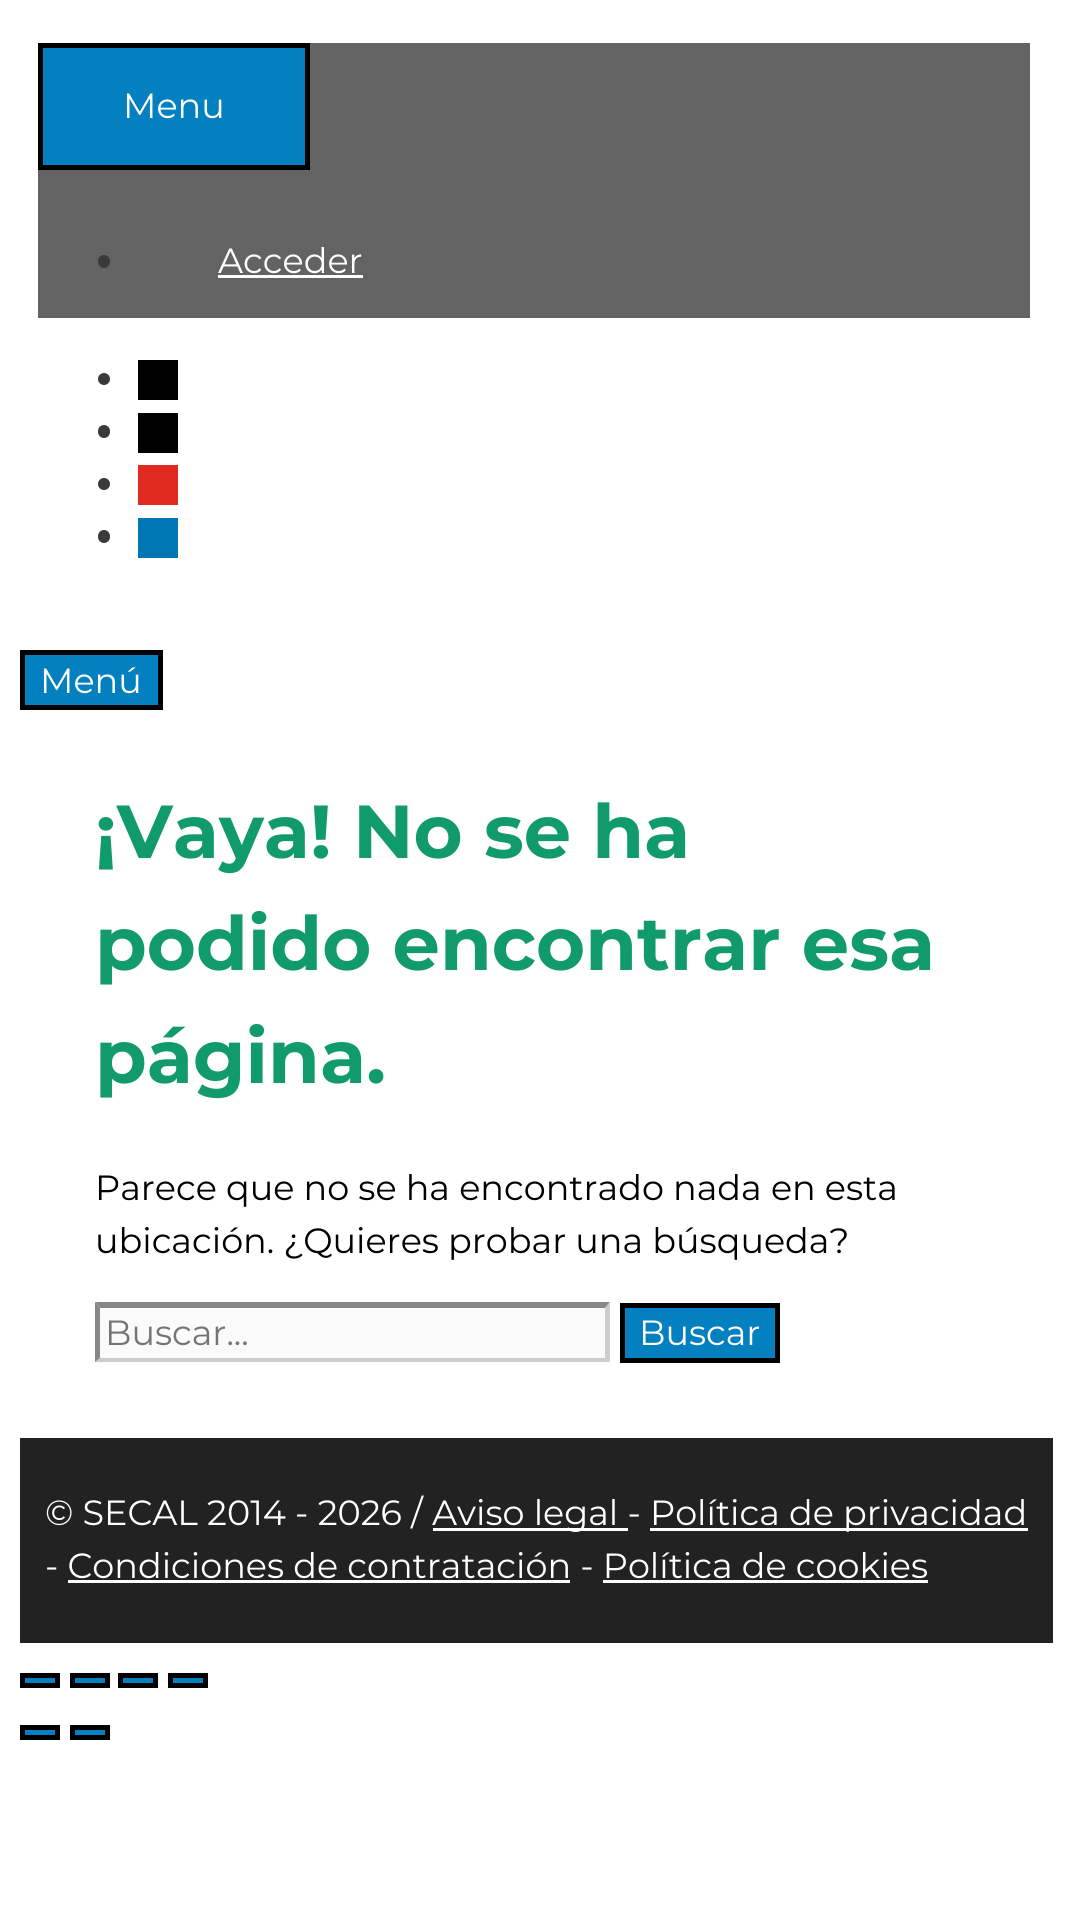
#include <cairo.h>
#include <math.h>
#include <stddef.h>


static void set_color(cairo_t *cr, unsigned color) {
    cairo_set_source_rgb(cr, (color >> 16) / 255.0, (color >> 8 & 255) / 255.0, (color & 255) / 255.0);
}

static void draw_text(cairo_t *cr, double x, double y, const char *s, const char *family, double size, int italic, int bold, unsigned color) {
    cairo_select_font_face(cr, family, italic ? CAIRO_FONT_SLANT_ITALIC : CAIRO_FONT_SLANT_NORMAL,
        bold ? CAIRO_FONT_WEIGHT_BOLD : CAIRO_FONT_WEIGHT_NORMAL);
    cairo_set_font_size(cr, size);
    set_color(cr, color);
    cairo_move_to(cr, x, y);
    cairo_show_text(cr, s);
}

static void fill_rect(cairo_t *cr, double x, double y, double w, double h, unsigned color) {
    set_color(cr, color);
    cairo_rectangle(cr, x, y, w, h);
    cairo_fill(cr);
}

static void rounded_rect(cairo_t *cr, double x, double y, double w, double h, double r) {
    cairo_new_sub_path(cr);
    cairo_arc(cr, x + w - r, y + h - r, r, 0, M_PI / 2);
    cairo_arc(cr, x + r, y + h - r, r, M_PI / 2, M_PI);
    cairo_arc(cr, x + r, y + r, r, M_PI, 1.5 * M_PI);
    cairo_arc(cr, x + w - r, y + r, r, 1.5 * M_PI, 2 * M_PI);
    cairo_close_path(cr);
}

int main(void) {
    cairo_surface_t *surface = cairo_image_surface_create(CAIRO_FORMAT_RGB24, 1071, 1910);
    cairo_t *cr = cairo_create(surface);
    cairo_font_options_t *options = cairo_font_options_create();
    cairo_font_options_set_hint_metrics(options, CAIRO_HINT_METRICS_OFF);
    cairo_font_options_set_hint_style(options, CAIRO_HINT_STYLE_NONE);
    cairo_set_font_options(cr, options);
    cairo_set_miter_limit(cr, 4);
    set_color(cr, 0xFFFFFF);
    cairo_paint(cr);
    fill_rect(cr, 38, 43, 992, 275, 0x636363);
    set_color(cr, 0x0380BF);
    cairo_rectangle(cr, 40.5, 45.5, 267, 122);
    cairo_fill_preserve(cr);
    set_color(cr, 0x000000);
    cairo_set_line_width(cr, 5);
    cairo_stroke(cr);
    draw_text(cr, 123, 118, "Menu", "Montserrat", 35, 0, 0, 0xFFFFFF);
    set_color(cr, 0x3A3A3A);
    rounded_rect(cr, 98, 255, 12, 13, 6);
    cairo_fill(cr);
    draw_text(cr, 218, 273, "Acceder", "Montserrat", 35, 0, 0, 0xFFFFFF);
    fill_rect(cr, 218, 275, 145, 3, 0xFFFFFF);
    set_color(cr, 0x3A3A3A);
    cairo_new_path(cr);
    cairo_arc(cr, 104, 379, 6, 0, 2 * M_PI);
    cairo_fill(cr);
    fill_rect(cr, 138, 360, 40, 40, 0x000000);
    set_color(cr, 0x3A3A3A);
    rounded_rect(cr, 98, 425, 12, 13, 6);
    cairo_fill(cr);
    fill_rect(cr, 138, 413, 40, 40, 0x000000);
    set_color(cr, 0x3A3A3A);
    cairo_arc(cr, 104, 484, 6, 0, 2 * M_PI);
    cairo_fill(cr);
    fill_rect(cr, 138, 465, 40, 40, 0xE02A20);
    set_color(cr, 0x3A3A3A);
    rounded_rect(cr, 98, 530, 12, 13, 6);
    cairo_fill(cr);
    fill_rect(cr, 138, 518, 40, 40, 0x0077B5);
    set_color(cr, 0x0380BF);
    cairo_rectangle(cr, 22.5, 652.5, 138, 55);
    cairo_fill_preserve(cr);
    set_color(cr, 0x000000);
    cairo_stroke(cr);
    draw_text(cr, 40, 693, "Menú", "Montserrat", 35, 0, 0, 0xFFFFFF);
    draw_text(cr, 95, 858, "¡Vaya! No se ha", "Montserrat", 75, 0, 1, 0x119B6D);
    draw_text(cr, 95, 970, "podido encontrar esa", "Montserrat", 75, 0, 1, 0x119B6D);
    draw_text(cr, 95, 1083, "página.", "Montserrat", 75, 0, 1, 0x119B6D);
    draw_text(cr, 95, 1200, "Parece que no se ha encontrado nada en esta", "Montserrat", 35, 0, 0, 0x000000);
    draw_text(cr, 95, 1253, "ubicación. ¿Quieres probar una búsqueda?", "Montserrat", 35, 0, 0, 0x000000);
    fill_rect(cr, 95, 1303, 515, 60, 0xFAFAFA);
    set_color(cr, 0x888888);
    cairo_new_path(cr);
    cairo_move_to(cr, 95, 1302);
    cairo_line_to(cr, 610, 1302);
    cairo_line_to(cr, 605, 1308);
    cairo_line_to(cr, 100, 1308);
    cairo_close_path(cr);
    cairo_fill(cr);
    set_color(cr, 0xCCCCCC);
    cairo_new_path(cr);
    cairo_move_to(cr, 610, 1302);
    cairo_line_to(cr, 610, 1362);
    cairo_line_to(cr, 605, 1358);
    cairo_line_to(cr, 605, 1308);
    cairo_close_path(cr);
    cairo_fill(cr);
    cairo_new_path(cr);
    cairo_move_to(cr, 610, 1362);
    cairo_line_to(cr, 95, 1362);
    cairo_line_to(cr, 100, 1358);
    cairo_line_to(cr, 605, 1358);
    cairo_close_path(cr);
    cairo_fill(cr);
    set_color(cr, 0x888888);
    cairo_new_path(cr);
    cairo_move_to(cr, 95, 1362);
    cairo_line_to(cr, 95, 1302);
    cairo_line_to(cr, 100, 1308);
    cairo_line_to(cr, 100, 1358);
    cairo_close_path(cr);
    cairo_fill(cr);
    draw_text(cr, 105, 1345, "Buscar...", "Montserrat", 35, 0, 0, 0x757575);
    set_color(cr, 0x0380BF);
    cairo_rectangle(cr, 622.5, 1305.5, 155, 55);
    cairo_fill_preserve(cr);
    set_color(cr, 0x000000);
    cairo_stroke(cr);
    draw_text(cr, 639, 1345, "Buscar", "Montserrat", 35, 0, 0, 0xFFFFFF);
    fill_rect(cr, 20, 1438, 1033, 205, 0x222222);
    draw_text(cr, 45, 1525, "© SECAL 2014 - 2026 /", "Montserrat", 35, 0, 0, 0xFFFFFF);
    fill_rect(cr, 433, 1528, 195, 3, 0xFFFFFF);
    draw_text(cr, 432, 1525, "Aviso legal -", "Montserrat", 35, 0, 0, 0xFFFFFF);
    fill_rect(cr, 650, 1528, 378, 3, 0xFFFFFF);
    draw_text(cr, 650, 1525, "Política de privacidad", "Montserrat", 35, 0, 0, 0xFFFFFF);
    draw_text(cr, 45, 1578, "- Condiciones de contratación - Política de cookies", "Montserrat", 35, 0, 0, 0xFFFFFF);
    fill_rect(cr, 68, 1580, 502, 3, 0xFFFFFF);
    fill_rect(cr, 603, 1580, 325, 3, 0xFFFFFF);
    set_color(cr, 0x0380BF);
    cairo_rectangle(cr, 22.5, 1675.5, 35, 10);
    cairo_fill_preserve(cr);
    set_color(cr, 0x000000);
    cairo_stroke(cr);
    set_color(cr, 0x0380BF);
    cairo_rectangle(cr, 72.5, 1675.5, 35, 10);
    cairo_fill_preserve(cr);
    set_color(cr, 0x000000);
    cairo_stroke(cr);
    set_color(cr, 0x0380BF);
    cairo_rectangle(cr, 120.5, 1675.5, 35, 10);
    cairo_fill_preserve(cr);
    set_color(cr, 0x000000);
    cairo_stroke(cr);
    set_color(cr, 0x0380BF);
    cairo_rectangle(cr, 170.5, 1675.5, 35, 10);
    cairo_fill_preserve(cr);
    set_color(cr, 0x000000);
    cairo_stroke(cr);
    set_color(cr, 0x0380BF);
    cairo_rectangle(cr, 22.5, 1727.5, 35, 10);
    cairo_fill_preserve(cr);
    set_color(cr, 0x000000);
    cairo_stroke(cr);
    set_color(cr, 0x0380BF);
    cairo_rectangle(cr, 72.5, 1727.5, 35, 10);
    cairo_fill_preserve(cr);
    set_color(cr, 0x000000);
    cairo_stroke(cr);
    cairo_surface_write_to_png(surface, "output.png");
    cairo_font_options_destroy(options);
    cairo_destroy(cr);
    cairo_surface_destroy(surface);
    return 0;
}
